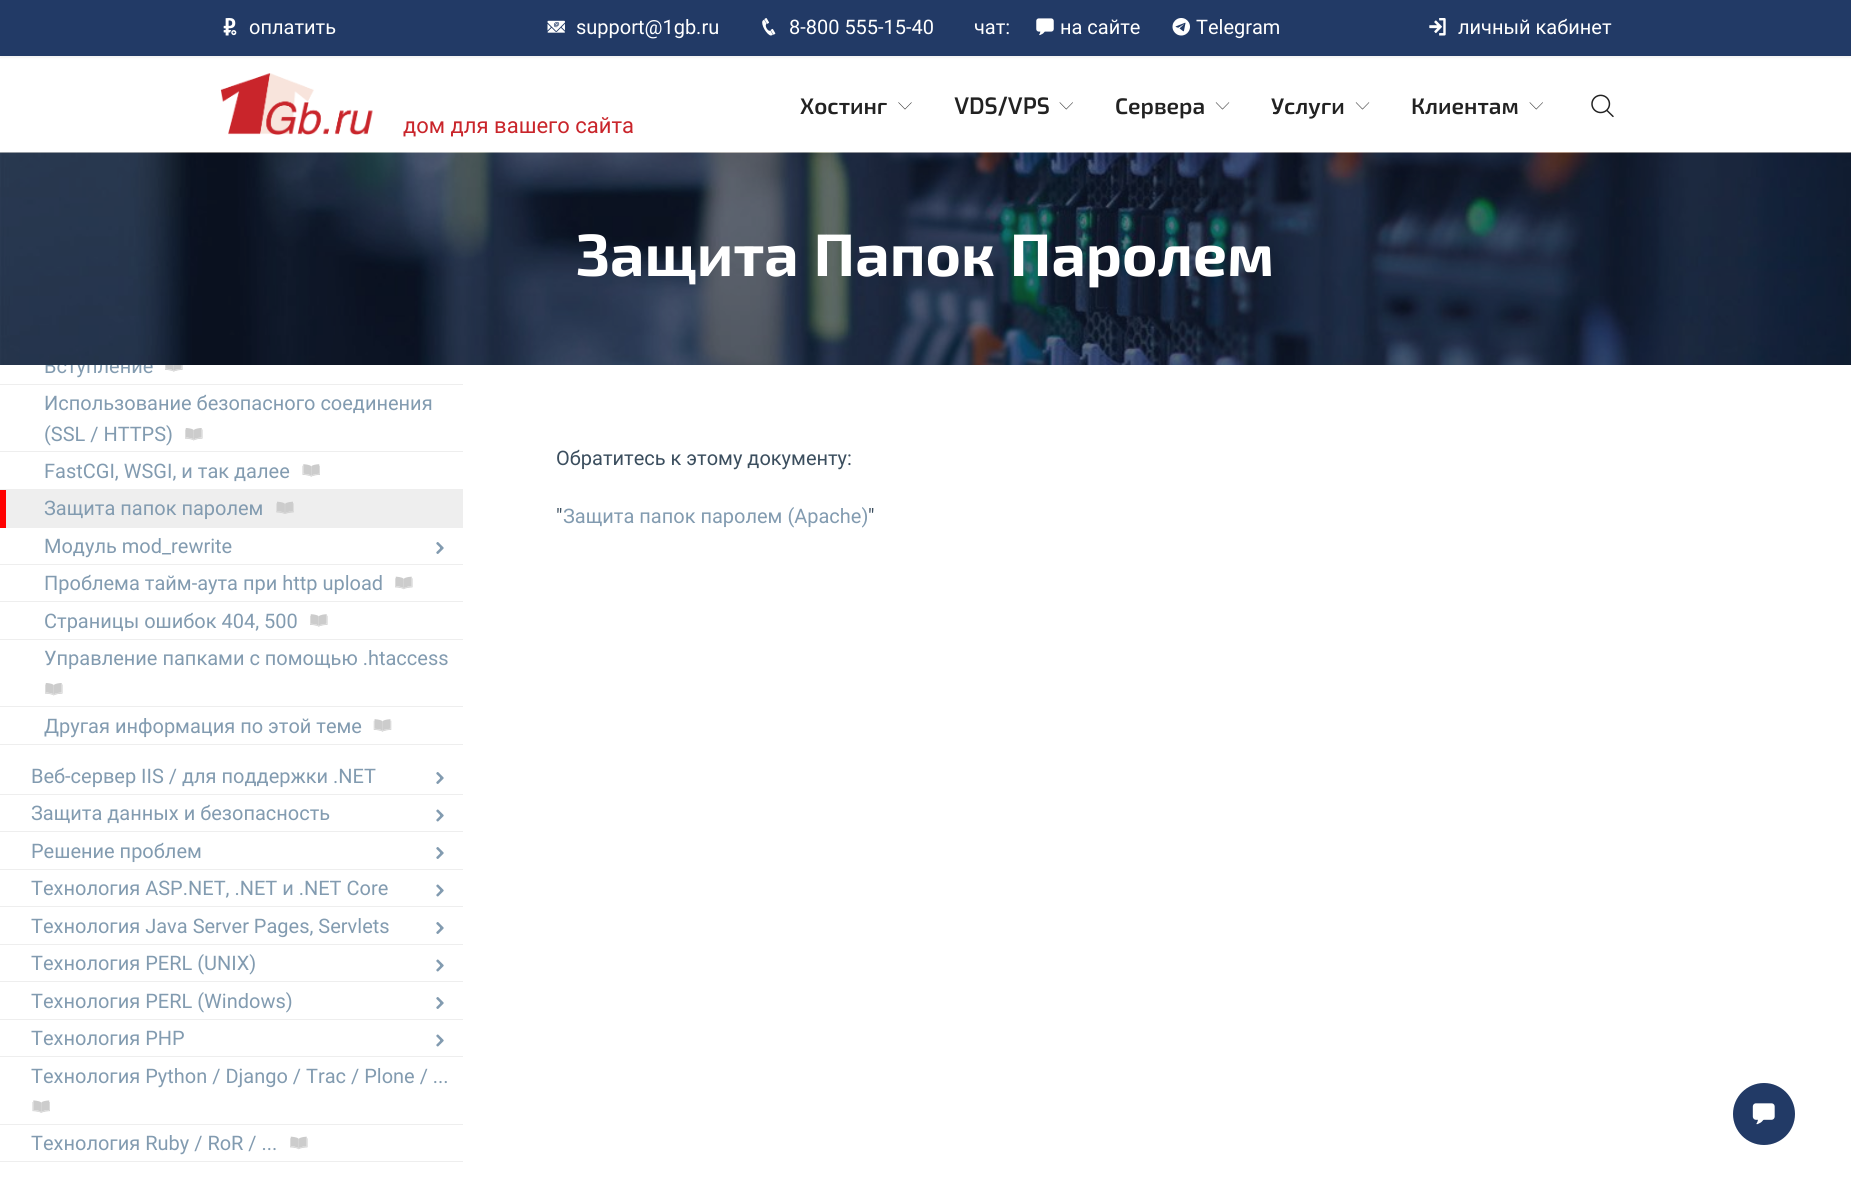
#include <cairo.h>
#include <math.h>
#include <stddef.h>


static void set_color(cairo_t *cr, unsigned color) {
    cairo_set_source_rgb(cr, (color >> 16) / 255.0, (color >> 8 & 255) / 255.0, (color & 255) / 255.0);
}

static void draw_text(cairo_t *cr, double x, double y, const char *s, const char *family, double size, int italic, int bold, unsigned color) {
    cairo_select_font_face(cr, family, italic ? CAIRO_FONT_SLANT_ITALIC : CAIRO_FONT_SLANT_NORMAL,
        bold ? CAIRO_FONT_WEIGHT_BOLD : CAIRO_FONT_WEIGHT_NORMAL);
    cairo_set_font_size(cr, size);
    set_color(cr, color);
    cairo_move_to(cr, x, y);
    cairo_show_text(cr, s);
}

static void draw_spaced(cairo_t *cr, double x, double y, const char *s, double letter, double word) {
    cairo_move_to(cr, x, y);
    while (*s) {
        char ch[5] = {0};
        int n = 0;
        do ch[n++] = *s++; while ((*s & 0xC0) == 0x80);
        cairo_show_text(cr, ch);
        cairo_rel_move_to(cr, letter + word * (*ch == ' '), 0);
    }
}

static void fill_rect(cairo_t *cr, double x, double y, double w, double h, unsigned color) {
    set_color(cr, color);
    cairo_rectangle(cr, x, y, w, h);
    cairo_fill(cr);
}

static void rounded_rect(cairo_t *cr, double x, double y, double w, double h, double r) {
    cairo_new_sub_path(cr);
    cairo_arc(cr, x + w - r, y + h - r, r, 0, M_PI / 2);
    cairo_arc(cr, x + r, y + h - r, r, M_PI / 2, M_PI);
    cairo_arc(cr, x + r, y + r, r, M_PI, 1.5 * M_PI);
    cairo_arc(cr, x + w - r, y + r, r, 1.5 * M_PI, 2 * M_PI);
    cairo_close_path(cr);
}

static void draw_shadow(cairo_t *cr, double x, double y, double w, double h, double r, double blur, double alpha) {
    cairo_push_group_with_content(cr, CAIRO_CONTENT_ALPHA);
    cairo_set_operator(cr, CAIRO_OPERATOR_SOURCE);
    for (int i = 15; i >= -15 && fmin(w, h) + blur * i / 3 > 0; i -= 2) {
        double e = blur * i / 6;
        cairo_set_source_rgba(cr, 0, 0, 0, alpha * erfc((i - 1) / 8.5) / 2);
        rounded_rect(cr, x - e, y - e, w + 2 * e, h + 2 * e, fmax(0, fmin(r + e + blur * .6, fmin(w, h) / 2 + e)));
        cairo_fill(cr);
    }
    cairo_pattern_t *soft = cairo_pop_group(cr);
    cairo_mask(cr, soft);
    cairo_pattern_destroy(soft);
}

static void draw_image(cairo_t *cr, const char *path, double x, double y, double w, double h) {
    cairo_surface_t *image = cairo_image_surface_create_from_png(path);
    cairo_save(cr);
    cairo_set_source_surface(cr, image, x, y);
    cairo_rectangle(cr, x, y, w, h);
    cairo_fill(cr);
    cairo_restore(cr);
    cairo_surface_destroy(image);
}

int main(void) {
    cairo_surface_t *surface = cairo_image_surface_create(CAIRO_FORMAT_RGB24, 1851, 1182);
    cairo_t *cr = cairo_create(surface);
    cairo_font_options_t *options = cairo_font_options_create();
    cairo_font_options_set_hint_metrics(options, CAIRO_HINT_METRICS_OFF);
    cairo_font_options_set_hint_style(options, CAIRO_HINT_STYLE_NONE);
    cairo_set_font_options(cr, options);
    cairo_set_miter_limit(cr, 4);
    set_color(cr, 0xFFFFFF);
    cairo_paint(cr);
    set_color(cr, 0x000000);
    draw_shadow(cr, 0, 1, 1851, 57, 0, 1, 0.05);
    fill_rect(cr, 0, 0, 1851, 56, 0x223A66);
    draw_image(cr, "assets/img1.png", 223, 18, 14, 18);
    draw_text(cr, 249, 34, "оплатить", "Roboto", 20, 0, 0, 0xFFFFFF);
    draw_image(cr, "assets/img2.png", 547, 20, 18, 13);
    draw_text(cr, 576, 34, "support@1gb.ru", "Roboto", 20, 0, 0, 0xFFFFFF);
    draw_image(cr, "assets/img3.png", 762, 18, 14, 18);
    draw_text(cr, 789, 34, "8-800 555-15-40", "Roboto", 20, 0, 0, 0xFFFFFF);
    draw_text(cr, 974, 34, "чат:", "Roboto", 20, 0, 0, 0xFFFFFF);
    draw_image(cr, "assets/img4.png", 1036, 18, 18, 18);
    draw_text(cr, 1060, 34, "на сайте", "Roboto", 20, 0, 0, 0xFFFFFF);
    draw_image(cr, "assets/img5.png", 1172, 18, 18, 18);
    draw_text(cr, 1196, 34, "Telegram", "Roboto", 20, 0, 0, 0xFFFFFF);
    draw_image(cr, "assets/img6.png", 1429, 18, 17, 18);
    draw_text(cr, 1458, 34, "личный кабинет", "Roboto", 20, 0, 0, 0xFFFFFF);
    draw_text(cr, 800, 114, "Хостинг", "Exo 2 SemiBold", 22.5, 0, 0, 0x222222);
    draw_image(cr, "assets/img7.png", 898, 102, 14, 8);
    draw_text(cr, 954, 114, "VDS/VPS", "Exo SemiBold", 22.5, 0, 0, 0x222222);
    draw_image(cr, "assets/img8.png", 1059, 102, 14, 8);
    draw_text(cr, 1115, 114, "Сервера", "Exo 2 SemiBold", 22.5, 0, 0, 0x222222);
    draw_image(cr, "assets/img9.png", 1215, 102, 15, 8);
    draw_text(cr, 1271, 114, "Услуги", "Exo 2 SemiBold", 22.5, 0, 0, 0x222222);
    draw_image(cr, "assets/img9.png", 1355, 102, 15, 8);
    draw_text(cr, 1411, 114, "Клиентам", "Exo 2 SemiBold", 22.5, 0, 0, 0x222222);
    draw_image(cr, "assets/img8.png", 1529, 102, 14, 8);
    draw_image(cr, "assets/img10.png", 1591, 94, 23, 24);
    draw_image(cr, "assets/img11.png", 220, 73, 153, 62);
    draw_text(cr, 403, 133, "дом для вашего сайта", "Roboto", 22, 0, 0, 0xC9252B);
    draw_image(cr, "assets/img12.png", 0, 152, 1851, 213);
    cairo_select_font_face(cr, "Exo 2", CAIRO_FONT_SLANT_NORMAL, CAIRO_FONT_WEIGHT_BOLD);
    cairo_set_font_size(cr, 60);
    set_color(cr, 0xFFFFFF);
    draw_spaced(cr, 576, 276, "Защита Папок Паролем", 0, 2);
    fill_rect(cr, 0, 384, 463, 1, 0xEEEEEE);
    cairo_save(cr);
    cairo_rectangle(cr, 0, 365, 463, 19);
    cairo_clip(cr);
    draw_text(cr, 44, 373, "Вступление", "Roboto", 20, 0, 0, 0x829BB0);
    cairo_restore(cr);
    draw_image(cr, "assets/img13.png", 165, 365, 18, 7);
    fill_rect(cr, 0, 451, 463, 1, 0xEEEEEE);
    draw_text(cr, 44, 410, "Использование безопасного соединения", "Roboto", 20, 0, 0, 0x829BB0);
    draw_text(cr, 44, 441, "(SSL / HTTPS)", "Roboto", 20, 0, 0, 0x829BB0);
    draw_image(cr, "assets/img14.png", 185, 428, 18, 13);
    fill_rect(cr, 0, 489, 463, 1, 0xEEEEEE);
    draw_text(cr, 44, 478, "FastCGI, WSGI, и так далее", "Roboto", 20, 0, 0, 0x829BB0);
    draw_image(cr, "assets/img15.png", 302, 464, 18, 13);
    fill_rect(cr, 6, 490, 457, 38, 0xEEEEEE);
    fill_rect(cr, 0, 490, 6, 38, 0xFF0000);
    draw_text(cr, 44, 515, "Защита папок паролем", "Roboto", 20, 0, 0, 0x829BB0);
    draw_image(cr, "assets/img16.png", 276, 501, 18, 13);
    fill_rect(cr, 0, 564, 463, 1, 0xEEEEEE);
    draw_text(cr, 44, 553, "Модуль mod_rewrite", "Roboto", 20, 0, 0, 0x829BB0);
    draw_image(cr, "assets/img17.png", 436, 542, 8, 12);
    fill_rect(cr, 0, 601, 463, 1, 0xEEEEEE);
    draw_text(cr, 44, 590, "Проблема тайм-аута при http upload", "Roboto", 20, 0, 0, 0x829BB0);
    draw_image(cr, "assets/img18.png", 395, 576, 18, 14);
    fill_rect(cr, 0, 639, 463, 1, 0xEEEEEE);
    draw_text(cr, 44, 628, "Страницы ошибок 404, 500", "Roboto", 20, 0, 0, 0x829BB0);
    draw_image(cr, "assets/img19.png", 310, 614, 18, 13);
    fill_rect(cr, 0, 706, 463, 1, 0xEEEEEE);
    draw_text(cr, 44, 665, "Управление папками с помощью .htaccess", "Roboto", 20, 0, 0, 0x829BB0);
    draw_image(cr, "assets/img14.png", 45, 683, 18, 13);
    fill_rect(cr, 0, 744, 463, 1, 0xEEEEEE);
    draw_text(cr, 44, 733, "Другая информация по этой теме", "Roboto", 20, 0, 0, 0x829BB0);
    draw_image(cr, "assets/img20.png", 373, 719, 19, 13);
    fill_rect(cr, 0, 794, 463, 1, 0xEEEEEE);
    draw_text(cr, 31, 783, "Веб-сервер IIS / для поддержки .NET", "Roboto", 20, 0, 0, 0x829BB0);
    draw_image(cr, "assets/img17.png", 436, 772, 8, 12);
    fill_rect(cr, 0, 831, 463, 1, 0xEEEEEE);
    draw_text(cr, 31, 820, "Защита данных и безопасность", "Roboto", 20, 0, 0, 0x829BB0);
    draw_image(cr, "assets/img21.png", 436, 809, 8, 13);
    fill_rect(cr, 0, 869, 463, 1, 0xEEEEEE);
    draw_text(cr, 31, 858, "Решение проблем", "Roboto", 20, 0, 0, 0x829BB0);
    draw_image(cr, "assets/img17.png", 436, 847, 8, 12);
    fill_rect(cr, 0, 906, 463, 1, 0xEEEEEE);
    draw_text(cr, 31, 895, "Технология ASP.NET, .NET и .NET Core", "Roboto", 20, 0, 0, 0x829BB0);
    draw_image(cr, "assets/img21.png", 436, 884, 8, 13);
    fill_rect(cr, 0, 944, 463, 1, 0xEEEEEE);
    draw_text(cr, 31, 933, "Технология Java Server Pages, Servlets", "Roboto", 20, 0, 0, 0x829BB0);
    draw_image(cr, "assets/img17.png", 436, 922, 8, 12);
    fill_rect(cr, 0, 981, 463, 1, 0xEEEEEE);
    draw_text(cr, 31, 970, "Технология PERL (UNIX)", "Roboto", 20, 0, 0, 0x829BB0);
    draw_image(cr, "assets/img21.png", 436, 959, 8, 13);
    fill_rect(cr, 0, 1019, 463, 1, 0xEEEEEE);
    draw_text(cr, 31, 1008, "Технология PERL (Windows)", "Roboto", 20, 0, 0, 0x829BB0);
    draw_image(cr, "assets/img17.png", 436, 997, 8, 12);
    fill_rect(cr, 0, 1056, 463, 1, 0xEEEEEE);
    draw_text(cr, 31, 1045, "Технология PHP", "Roboto", 20, 0, 0, 0x829BB0);
    draw_image(cr, "assets/img21.png", 436, 1034, 8, 13);
    fill_rect(cr, 0, 1124, 463, 1, 0xEEEEEE);
    draw_text(cr, 31, 1083, "Технология Python / Django / Trac / Plone / ...", "Roboto", 20, 0, 0, 0x829BB0);
    draw_image(cr, "assets/img22.png", 32, 1100, 18, 13);
    fill_rect(cr, 0, 1161, 463, 1, 0xEEEEEE);
    draw_text(cr, 31, 1150, "Технология Ruby / RoR / ...", "Roboto", 20, 0, 0, 0x829BB0);
    draw_image(cr, "assets/img18.png", 290, 1136, 18, 14);
    draw_text(cr, 556, 465, "Обратитесь к этому документу:", "Roboto", 20, 0, 0, 0x3B4E5E);
    draw_text(cr, 556, 523, "\"", "Roboto", 20, 0, 0, 0x3B4E5E);
    draw_text(cr, 563, 523, "Защита папок паролем (Apache)", "Roboto", 20, 0, 0, 0x829BB0);
    draw_text(cr, 868, 523, "\"", "Roboto", 20, 0, 0, 0x3B4E5E);
    set_color(cr, 0x223A66);
    cairo_new_path(cr);
    cairo_arc(cr, 1764, 1114, 31, 0, 2 * M_PI);
    cairo_fill(cr);
    draw_image(cr, "assets/img23.png", 1752, 1103, 23, 22);
    cairo_surface_write_to_png(surface, "output.png");
    cairo_font_options_destroy(options);
    cairo_destroy(cr);
    cairo_surface_destroy(surface);
    return 0;
}
